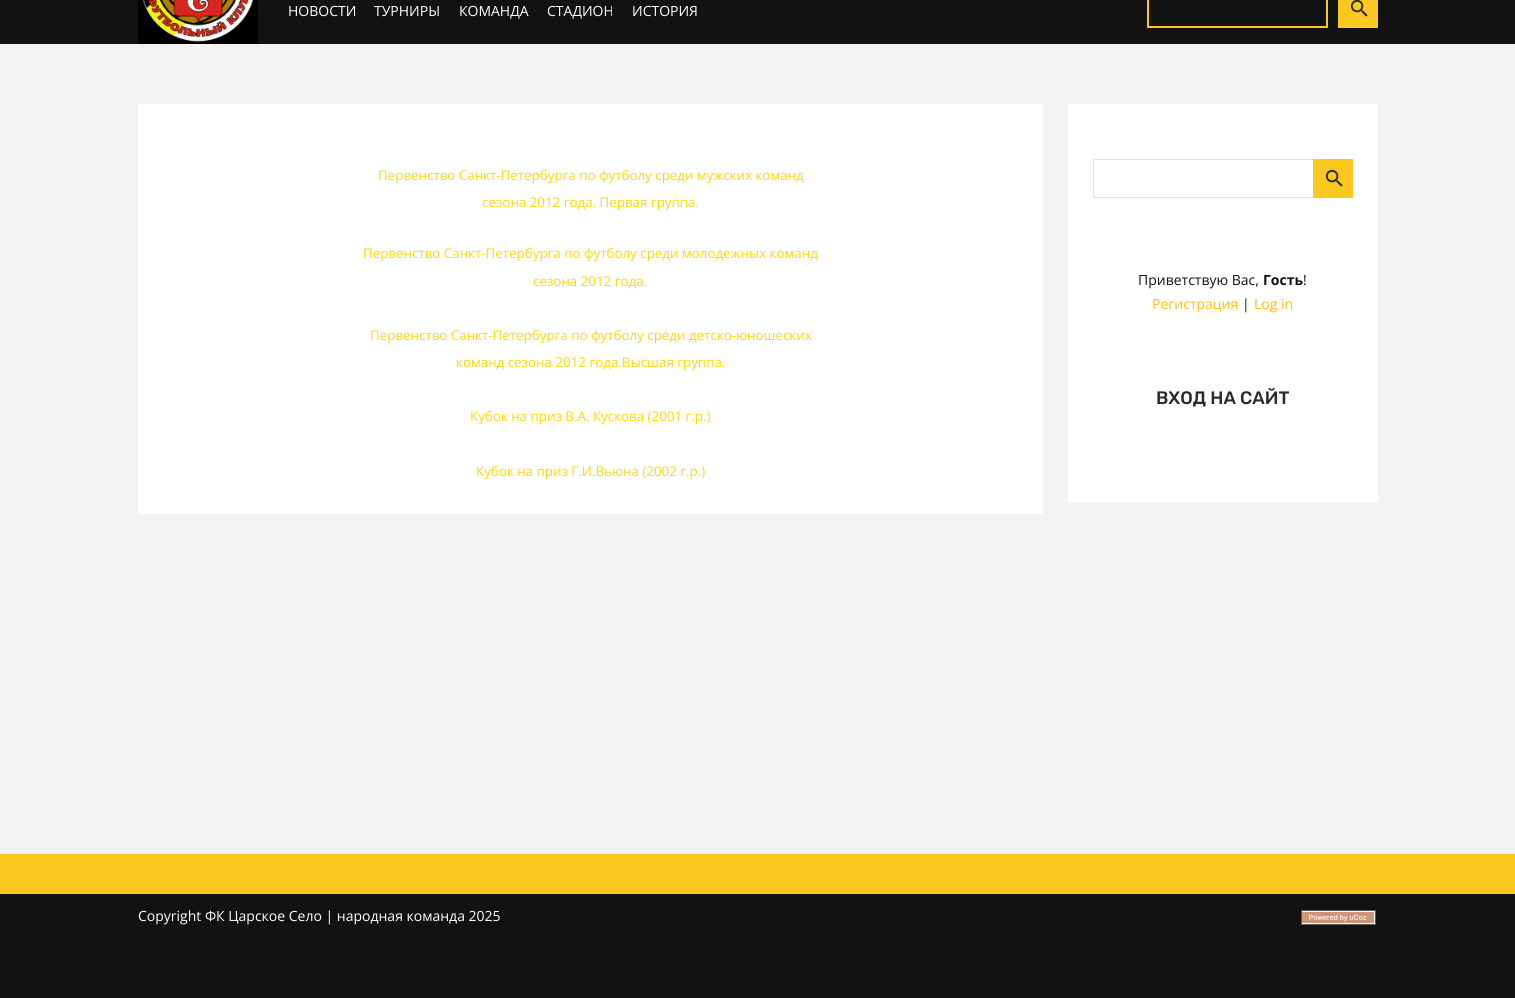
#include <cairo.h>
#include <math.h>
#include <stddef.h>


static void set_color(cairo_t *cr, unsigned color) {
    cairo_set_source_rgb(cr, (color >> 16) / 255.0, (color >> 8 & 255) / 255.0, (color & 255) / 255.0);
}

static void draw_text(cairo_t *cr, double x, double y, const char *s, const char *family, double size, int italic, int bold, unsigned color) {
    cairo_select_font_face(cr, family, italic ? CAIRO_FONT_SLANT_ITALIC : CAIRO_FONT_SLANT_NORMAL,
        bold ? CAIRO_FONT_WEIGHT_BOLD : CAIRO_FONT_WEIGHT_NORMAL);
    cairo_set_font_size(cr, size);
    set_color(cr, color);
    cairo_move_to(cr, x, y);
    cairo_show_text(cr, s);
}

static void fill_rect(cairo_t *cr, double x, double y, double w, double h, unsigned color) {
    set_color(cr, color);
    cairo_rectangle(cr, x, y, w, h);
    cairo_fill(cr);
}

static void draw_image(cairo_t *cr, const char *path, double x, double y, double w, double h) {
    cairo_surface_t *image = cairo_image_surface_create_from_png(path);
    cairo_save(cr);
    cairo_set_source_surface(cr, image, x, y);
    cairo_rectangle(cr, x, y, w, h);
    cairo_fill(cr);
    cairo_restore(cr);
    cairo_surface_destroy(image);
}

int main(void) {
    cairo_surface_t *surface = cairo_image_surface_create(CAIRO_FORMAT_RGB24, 1515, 998);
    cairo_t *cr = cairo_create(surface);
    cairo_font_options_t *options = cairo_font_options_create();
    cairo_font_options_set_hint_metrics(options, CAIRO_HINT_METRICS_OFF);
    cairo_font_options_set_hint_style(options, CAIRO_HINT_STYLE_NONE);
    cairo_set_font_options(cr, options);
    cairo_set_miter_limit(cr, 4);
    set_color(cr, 0xF3F3F3);
    cairo_paint(cr);
    fill_rect(cr, 0, 0, 1515, 44, 0x121212);
    draw_image(cr, "assets/img1.png", 138, 0, 120, 44);
    draw_text(cr, 288, 16, "НОВОСТИ", "Open Sans", 14, 0, 0, 0xFFFFFF);
    draw_text(cr, 374, 16, "ТУРНИРЫ", "Open Sans", 14, 0, 0, 0xFFFFFF);
    draw_text(cr, 459, 16, "КОМАНДА", "Open Sans", 14, 0, 0, 0xFFFFFF);
    draw_text(cr, 547, 16, "СТАДИОН", "Open Sans", 14, 0, 0, 0xFFFFFF);
    draw_text(cr, 632, 16, "ИСТОРИЯ", "Open Sans", 14, 0, 0, 0xFFFFFF);
    cairo_rectangle(cr, 1148, -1, 179, 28);
    set_color(cr, 0xFBC81F);
    cairo_stroke(cr);
    fill_rect(cr, 1338, 0, 40, 28, 0xFBC81F);
    draw_image(cr, "assets/img2.png", 1350, 0, 18, 17);
    fill_rect(cr, 138, 104, 905, 410, 0xFFFFFF);
    draw_text(cr, 378, 180, "Первенство Санкт-Петербурга по футболу среди мужских команд", "Open Sans", 13.35, 0, 0, 0xFFD700);
    draw_text(cr, 482, 207, "сезона 2012 года. Первая группа.", "Open Sans", 13.35, 0, 0, 0xFFD700);
    draw_text(cr, 363, 258, "Первенство Санкт-Петербурга по футболу среди молодежных команд", "Open Sans", 13.35, 0, 0, 0xFFD700);
    draw_text(cr, 533, 286, "сезона 2012 года.", "Open Sans", 13.35, 0, 0, 0xFFD700);
    draw_text(cr, 370, 340, "Первенство Санкт-Петербурга по футболу среди детско-юношеских", "Open Sans", 13.35, 0, 0, 0xFFD700);
    draw_text(cr, 456, 367, "команд сезона 2012 года.Высшая группа.", "Open Sans", 13.35, 0, 0, 0xFFD700);
    draw_text(cr, 470, 421, "Кубок на приз В.А. Кускова (2001 г.р.)", "Open Sans", 13.35, 0, 0, 0xFFD700);
    draw_text(cr, 476, 476, "Кубок на приз Г.И.Вьюна (2002 г.р.)", "Open Sans", 13.35, 0, 0, 0xFFD700);
    fill_rect(cr, 1068, 104, 310, 398, 0xFFFFFF);
    cairo_rectangle(cr, 1093.5, 159.5, 259, 38);
    set_color(cr, 0xE1E1E1);
    cairo_set_line_width(cr, 1);
    cairo_stroke(cr);
    fill_rect(cr, 1313, 159, 40, 39, 0xFBC81F);
    draw_image(cr, "assets/img3.png", 1325, 169, 18, 18);
    draw_text(cr, 1138, 285, "Приветствую Вас,", "Open Sans", 14, 0, 0, 0x121212);
    draw_text(cr, 1263, 285, "Гость", "Open Sans", 14, 0, 1, 0x121212);
    draw_text(cr, 1303, 285, "!", "Open Sans", 14, 0, 0, 0x121212);
    draw_text(cr, 1152, 309, "Регистрация", "Open Sans", 14, 0, 0, 0xFFBE0A);
    draw_text(cr, 1242, 309, "|", "Open Sans", 14, 0, 0, 0x121212);
    draw_text(cr, 1254, 309, "Log in", "Open Sans", 14, 0, 0, 0xFFBE0A);
    draw_text(cr, 1156, 404, "ВХОД НА САЙТ", "Rubik Medium", 18, 0, 0, 0x2B2B2B);
    fill_rect(cr, 0, 854, 1515, 40, 0xFBC81F);
    fill_rect(cr, 0, 894, 1515, 104, 0x121212);
    draw_text(cr, 138, 921, "Copyright ФК Царское Село | народная команда 2025", "Open Sans", 14, 0, 0, 0xFFFFFF);
    draw_image(cr, "assets/img4.png", 1301, 910, 75, 15);
    cairo_surface_write_to_png(surface, "output.png");
    cairo_font_options_destroy(options);
    cairo_destroy(cr);
    cairo_surface_destroy(surface);
    return 0;
}
